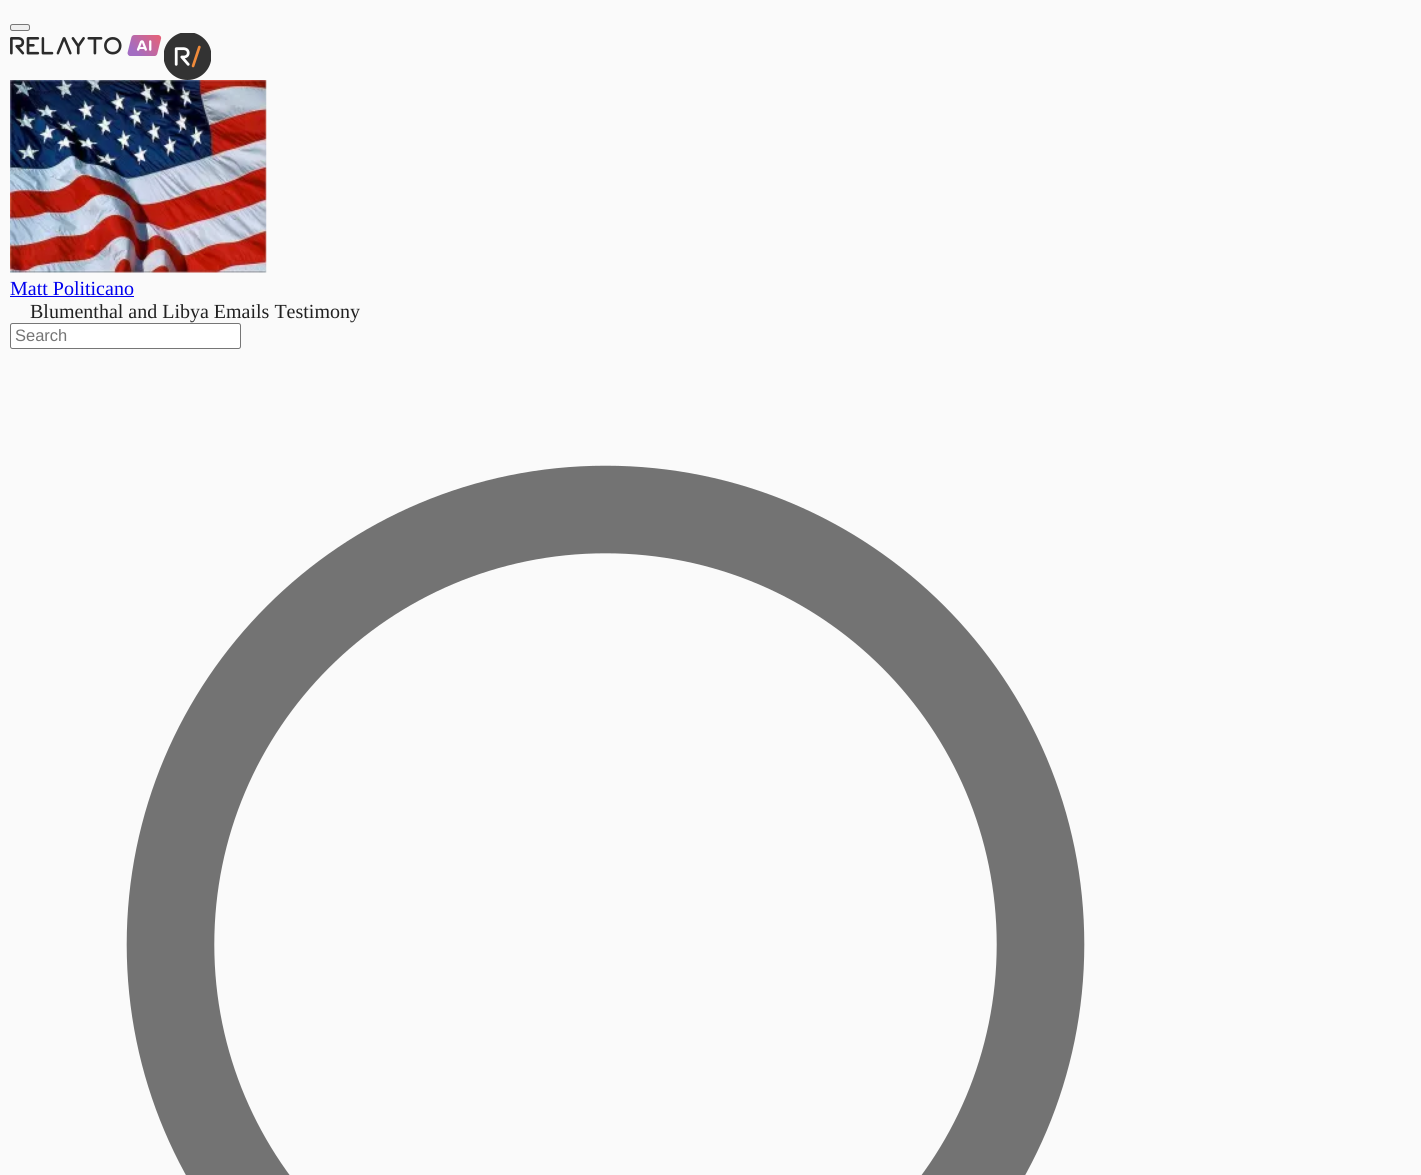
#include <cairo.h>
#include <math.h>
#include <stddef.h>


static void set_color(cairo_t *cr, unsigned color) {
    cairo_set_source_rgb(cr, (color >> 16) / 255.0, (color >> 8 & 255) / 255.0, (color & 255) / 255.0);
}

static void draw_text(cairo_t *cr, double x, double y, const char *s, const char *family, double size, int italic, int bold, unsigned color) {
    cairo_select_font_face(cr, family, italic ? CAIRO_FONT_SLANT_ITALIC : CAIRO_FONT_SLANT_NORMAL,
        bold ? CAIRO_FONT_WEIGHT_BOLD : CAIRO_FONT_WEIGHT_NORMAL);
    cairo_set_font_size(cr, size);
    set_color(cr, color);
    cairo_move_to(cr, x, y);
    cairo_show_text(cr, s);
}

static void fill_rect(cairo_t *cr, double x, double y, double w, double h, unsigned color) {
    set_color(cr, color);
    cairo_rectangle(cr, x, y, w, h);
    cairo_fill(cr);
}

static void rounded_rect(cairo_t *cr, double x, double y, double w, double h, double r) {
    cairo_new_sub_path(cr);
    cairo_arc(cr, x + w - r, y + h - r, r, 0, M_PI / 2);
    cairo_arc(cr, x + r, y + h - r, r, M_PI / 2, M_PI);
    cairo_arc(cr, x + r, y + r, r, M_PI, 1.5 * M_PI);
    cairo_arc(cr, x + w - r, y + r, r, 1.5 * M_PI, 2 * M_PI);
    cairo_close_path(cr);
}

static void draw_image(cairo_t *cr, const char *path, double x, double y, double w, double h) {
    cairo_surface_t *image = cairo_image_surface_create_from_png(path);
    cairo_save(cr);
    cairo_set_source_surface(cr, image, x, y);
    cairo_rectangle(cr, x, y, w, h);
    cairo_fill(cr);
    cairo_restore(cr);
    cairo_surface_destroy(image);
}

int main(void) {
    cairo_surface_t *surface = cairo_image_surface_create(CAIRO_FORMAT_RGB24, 1421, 1175);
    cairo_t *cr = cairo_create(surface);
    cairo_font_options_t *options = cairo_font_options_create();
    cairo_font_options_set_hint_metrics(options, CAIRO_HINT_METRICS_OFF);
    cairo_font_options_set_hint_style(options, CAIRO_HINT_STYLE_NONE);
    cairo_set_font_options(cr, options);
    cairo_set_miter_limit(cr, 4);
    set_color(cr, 0xFAFAFA);
    cairo_paint(cr);
    set_color(cr, 0xEFEFEF);
    rounded_rect(cr, 10.5, 24.5, 19, 6, 2);
    cairo_fill_preserve(cr);
    set_color(cr, 0x767676);
    cairo_set_line_width(cr, 1);
    cairo_stroke(cr);
    draw_image(cr, "assets/img1.png", 10, 35, 152, 21);
    draw_image(cr, "assets/img2.png", 164, 33, 47, 47);
    draw_image(cr, "assets/img3.png", 10, 80, 257, 193);
    draw_text(cr, 10, 295, "Matt Politicano", "Liberation Serif", 20, 0, 0, 0x0000EE);
    fill_rect(cr, 10, 296, 124, 1, 0x0000EE);
    draw_text(cr, 30, 318, "Blumenthal and Libya Emails Testimony", "Liberation Serif", 20, 0, 0, 0x212121);
    set_color(cr, 0xFFFFFF);
    rounded_rect(cr, 10.5, 323.5, 230, 25, 2);
    cairo_fill_preserve(cr);
    set_color(cr, 0x767676);
    cairo_stroke(cr);
    draw_text(cr, 15, 341, "Search", "Liberation Sans", 16.5, 0, 0, 0x757575);
    cairo_new_path(cr);
    cairo_move_to(cr, 170.5, 944.5);
    cairo_curve_to(cr, 170.5, 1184.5, 365.5, 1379.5, 605.5, 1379.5);
    cairo_curve_to(cr, 846, 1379.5, 1040.5, 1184.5, 1040.5, 944.5);
    cairo_curve_to(cr, 1040.5, 704, 846, 509.5, 605.5, 509.5);
    cairo_curve_to(cr, 365.5, 509.5, 170.5, 704, 170.5, 944.5);
    cairo_close_path(cr);
    cairo_move_to(cr, 913, 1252);
    cairo_line_to(cr, 1250.5, 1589.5);
    set_color(cr, 0x737373);
    cairo_set_line_width(cr, 87.6);
    cairo_set_line_cap(cr, CAIRO_LINE_CAP_ROUND);
    cairo_set_line_join(cr, CAIRO_LINE_JOIN_ROUND);
    cairo_stroke(cr);
    cairo_surface_write_to_png(surface, "output.png");
    cairo_font_options_destroy(options);
    cairo_destroy(cr);
    cairo_surface_destroy(surface);
    return 0;
}
